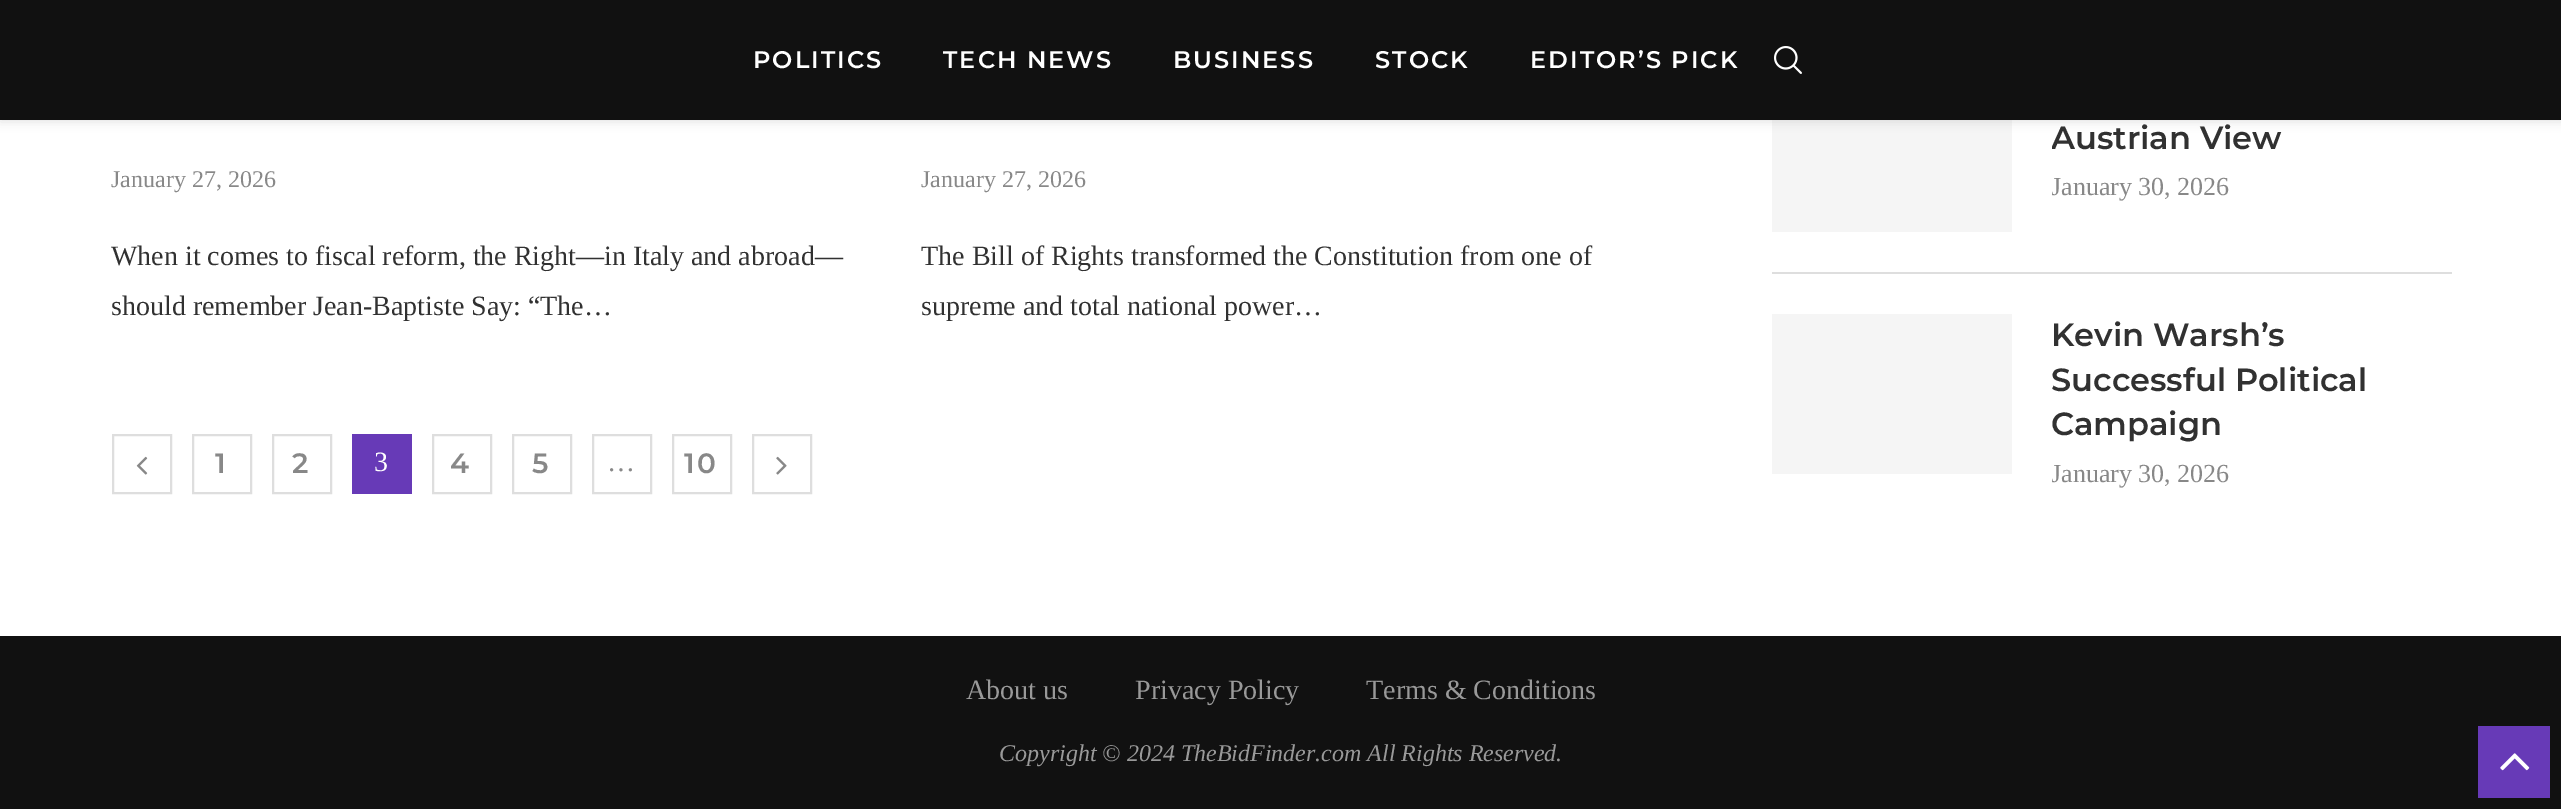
%!PS
<< /PageSize [2561 809] /PageUsesTransparency true >> setpagedevice
/mt/moveto load def
/gs/gsave load def
/gr/grestore load def
/lw/setlinewidth load def
/co { dup -16 bitshift 255 div exch dup -8 bitshift 255 and 255 div exch 255 and 255 div setrgbcolor } def
/fn { [ exch dup neg 0 0 3 -1 roll 0 0 ] selectfont } def
/tx { co fn moveto show } def
/bx { co rectfill } def
/al { dup .setfillconstantalpha .setstrokeconstantalpha } def
/rr { 5 dict begin { /r /h /w /y /x } { exch def } forall
  x r add y moveto x w add y 2 copy h add r arct x w add y h add x 1 index r arct
  x y h add x y r arct x y 2 copy exch w add exch r arct closepath end } def
/sh { 12 dict begin { /a /b /q /h /w /y /x } { exch def } forall gsave /was 0 def
  9 -2 -9 { dup b mul 4 div /e exch def 1 sub .425 mul 2.718 exch exp 1 add a .99 .min exch div /now exch def
    1 1 now sub 1 was sub div sub al /was now def
    w h .min e 2 mul add 0 gt { x e sub y e sub w e 2 mul add h e 2 mul add
      q e add b .6 mul add w h .min 2 div e add .min 0 .max rr fill } if } for grestore end } def
/im { 5 dict begin { /h /w /y /x /name } { exch def } forall
  gsave x y translate w h scale
  w h 8 [w 0 0 h 0 0] name (r) file false 3 colorimage grestore end } def
0 .pushpdf14devicefilter
0 809 translate 1 -1 scale
4 setmiterlimit
0 0 2561 809 16#FFFFFF bx
1772 120 240 112 16#F5F5F5 bx
16#BEBEBE co
0 2 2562 120 0 5 .46 sh
0 0 2561 120 16#111111 bx
(media/1.raw) 1774 46 28 28 im
16#DEDEDE co
2 lw
113 435 58 58 rectstroke
(media/2.raw) 136 456 12 19 im
193 435 58 58 rectstroke
273 435 58 58 rectstroke
352 434 60 60 16#673AB7 bx
16#DEDEDE co
433 435 58 58 rectstroke
513 435 58 58 rectstroke
593 435 58 58 rectstroke
673 435 58 58 rectstroke
753 435 58 58 rectstroke
(media/3.raw) 776 456 11 19 im
1772 272 680 2 16#DEDEDE bx
1772 314 240 160 16#F5F5F5 bx
0 636 2561 173 16#111111 bx
2478 726 72 72 16#673AB7 bx
(media/4.raw) 2500 753 30 18 im
/Montserrat-SemiBold 24 fn
16#FFFFFF co
753 68 mt 2 0 (POLITICS) ashow
943 68 mt 2 0 (TECH NEWS) ashow
1173 68 mt 2 0 (BUSINESS) ashow
1375 68 mt 2 0 (STOCK) ashow
1530 68 mt 2 0 (EDITOR’S PICK) ashow
(January 27, 2026) 111 187 /LiberationSerif-Regular 24 16#888888 tx
(When it comes to fiscal reform, the Right—in Italy and abroad—) 111 265 /LiberationSerif-Regular 28 16#313131 tx
(should remember Jean-Baptiste Say: “The…) 111 315 /LiberationSerif-Regular 28 16#313131 tx
(January 27, 2026) 921 187 /LiberationSerif-Regular 24 16#888888 tx
(The Bill of Rights transformed the Constitution from one of) 921 265 /LiberationSerif-Regular 28 16#313131 tx
(supreme and total national power…) 921 315 /LiberationSerif-Regular 28 16#313131 tx
/Montserrat-SemiBold 28 fn
16#888888 co
215 473 mt 2 0 (1) ashow
292 473 mt 2 0 (2) ashow
(3) 374 471 /LiberationSerif-Regular 28 16#FFFFFF tx
/Montserrat-SemiBold 28 fn
16#888888 co
450 473 mt 2 0 (4) ashow
532 473 mt 2 0 (5) ashow
(…) 607 471 /LiberationSerif-Regular 28 16#888888 tx
/Montserrat-SemiBold 28 fn
684 473 mt 2 0 (10) ashow
gs
2052 72 400 130 rectclip
(Austrian View) 2051 149 /Montserrat-SemiBold 32 16#313131 tx
(January 30, 2026) 2051 195 /LiberationSerif-Regular 26 16#888888 tx
gr
(Kevin Warsh’s) 2051 346 /Montserrat-SemiBold 32 16#313131 tx
(Successful Political) 2051 391 /Montserrat-SemiBold 32 16#313131 tx
(Campaign) 2051 435 /Montserrat-SemiBold 32 16#313131 tx
gs
2052 314 400 176 rectclip
(January 30, 2026) 2051 482 /LiberationSerif-Regular 26 16#888888 tx
gr
(About us) 966 699 /LiberationSerif-Regular 28 16#999999 tx
(Privacy Policy) 1135 699 /LiberationSerif-Regular 28 16#999999 tx
(Terms & Conditions) 1366 699 /LiberationSerif-Regular 28 16#999999 tx
(Copyright © 2024 TheBidFinder.com All Rights Reserved.) 999 761 /LiberationSerif-Italic 24 16#999999 tx
.poppdf14devicefilter showpage
